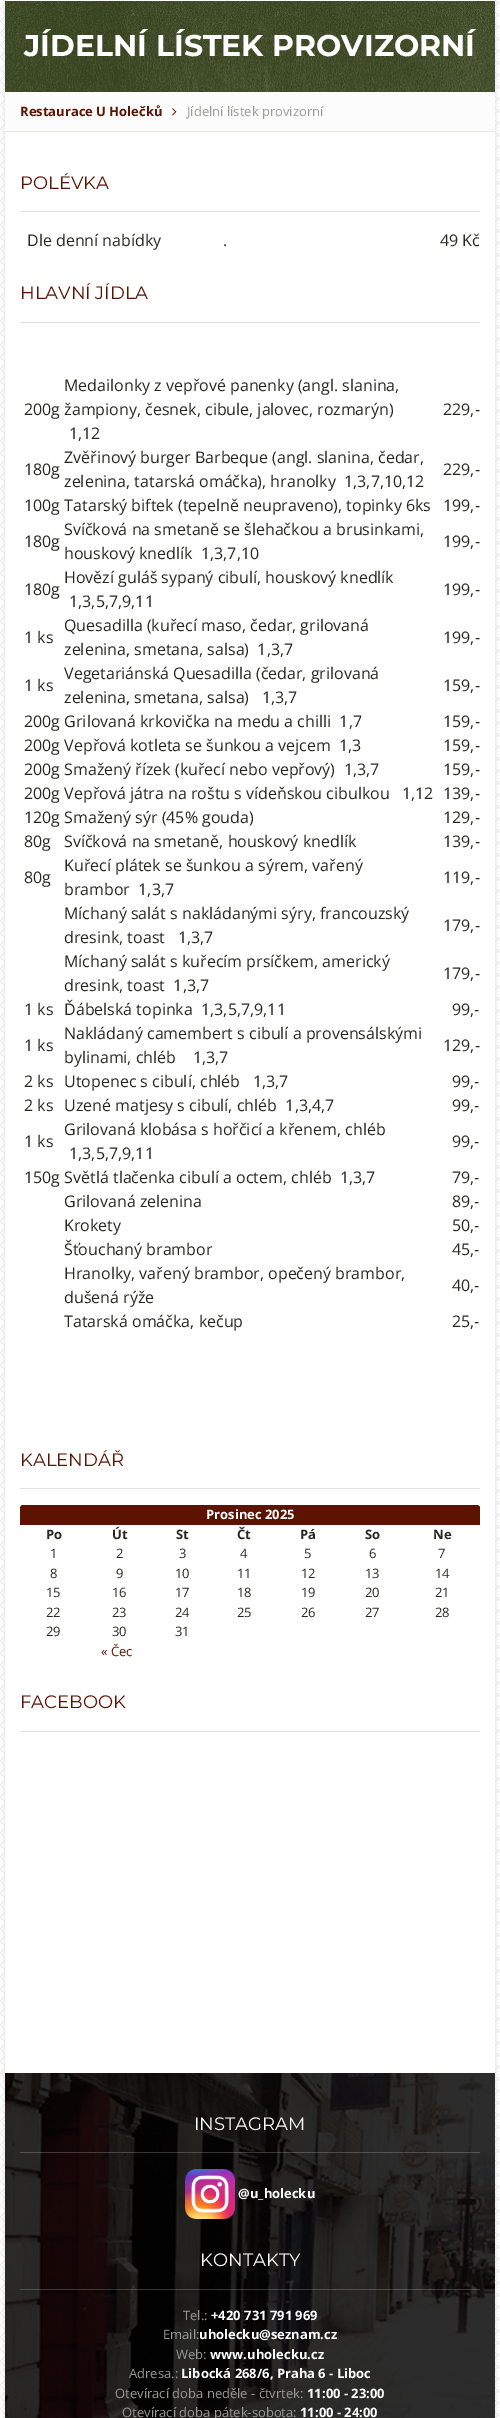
%!PS
<< /PageSize [500 2418] /PageUsesTransparency true >> setpagedevice
/mt/moveto load def
/li/lineto load def
/ct/curveto load def
/cp/closepath load def
/fl/fill load def
/co { dup -16 bitshift 255 div exch dup -8 bitshift 255 and 255 div exch 255 and 255 div setrgbcolor } def
/fn { [ exch dup neg 0 0 3 -1 roll 0 0 ] selectfont } def
/tx { co fn moveto show } def
/bx { co rectfill } def
/al { dup .setfillconstantalpha .setstrokeconstantalpha } def
/rr { 5 dict begin { /r /h /w /y /x } { exch def } forall
  x r add y moveto x w add y 2 copy h add r arct x w add y h add x 1 index r arct
  x y h add x y r arct x y 2 copy exch w add exch r arct closepath end } def
/sh { 12 dict begin { /a /b /q /h /w /y /x } { exch def } forall gsave /was 0 def
  9 -2 -9 { dup b mul 4 div /e exch def 1 sub .425 mul 2.718 exch exp 1 add a .99 .min exch div /now exch def
    1 1 now sub 1 was sub div sub al /was now def
    w h .min e 2 mul add 0 gt { x e sub y e sub w e 2 mul add h e 2 mul add
      q e add b .6 mul add w h .min 2 div e add .min 0 .max rr fill } if } for grestore end } def
/im { 5 dict begin { /h /w /y /x /name } { exch def } forall
  gsave x y translate w h scale
  w h 8 [w 0 0 h 0 0] name (r) file false 3 colorimage grestore end } def
0 .pushpdf14devicefilter
0 2418 translate 1 -1 scale
4 setmiterlimit
0 0 500 2418 16#FFFFFF bx
(media/1.raw) 0 0 500 2418 im
16#000000 co
5 -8 490 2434 0 2.5 .12 sh
5 0 490 2073 16#FFFFFF bx
5 1 490 91 16#49592A bx
(media/2.raw) 5 1 490 91 im
5 92 490 39 16#FCFCFC bx
5 131 490 1 16#E8E8E3 bx
(media/3.raw) 172 108 5 8 im
20 211 460 1 16#E0E0E0 bx
20 322 460 1 16#E0E0E0 bx
20 1488 460 1 16#E0E0E0 bx
16#5C1302 co
23 1505 mt 477 1505 li 478.5 1505 480 1506.5 480 1508 ct 480 1525 li 20 1525 li 20 1508 li 20 1506.5 21.5 1505 23 1505 ct cp fl
20 1731 460 1 16#E0E0E0 bx
5 2073 490 345 16#000000 bx
(media/4.raw) 5 2073 490 345 im
0.2 al
20 2152 460 1 16#FFFFFF bx
1 al
(media/5.raw) 185 2169 50 50 im
0.2 al
20 2289 460 1 16#FFFFFF bx
1 al
(JÍDELNÍ LÍSTEK PROVIZORNÍ) 24 56 /Montserrat-Bold 30 16#FFFFFF tx
(Restaurace U Holečků) 20 116 /OpenSans-Bold 13 16#5C1302 tx
(Jídelní lístek provizorní) 187 116 /OpenSans-Regular 13 16#999996 tx
(POLÉVKA) 20 189 /Montserrat-Regular 18 16#5C1302 tx
(Dle denní nabídky               .) 27 246 /OpenSans-Regular 16 16#282823 tx
(49 Kč) 440 246 /OpenSans-Regular 16 16#282823 tx
(HLAVNÍ JÍDLA) 20 299 /Montserrat-Regular 18 16#5C1302 tx
(Medailonky z vepřové panenky \(angl. slanina,) 64 391 /OpenSans-Regular 16 16#282823 tx
(1,12) 69 439 /OpenSans-Regular 16 16#282823 tx
(200g žampiony, česnek, cibule, jalovec, rozmarýn\)) 24 415 /OpenSans-Regular 16 16#282823 tx
(229,-) 443 415 /OpenSans-Regular 16 16#282823 tx
(180g) 24 475 /OpenSans-Regular 16 16#282823 tx
(Zvěřinový burger Barbeque \(angl. slanina, čedar,) 64 463 /OpenSans-Regular 16 16#282823 tx
(zelenina, tatarská omáčka\), hranolky  1,3,7,10,12) 64 487 /OpenSans-Regular 16 16#282823 tx
(229,-) 443 475 /OpenSans-Regular 16 16#282823 tx
(100g Tatarský biftek \(tepelně neupraveno\), topinky 6ks) 24 511 /OpenSans-Regular 16 16#282823 tx
(199,-) 443 511 /OpenSans-Regular 16 16#282823 tx
(180g) 24 547 /OpenSans-Regular 16 16#282823 tx
(Svíčková na smetaně se šlehačkou a brusinkami,) 64 535 /OpenSans-Regular 16 16#282823 tx
(houskový knedlík  1,3,7,10) 64 559 /OpenSans-Regular 16 16#282823 tx
(199,-) 443 547 /OpenSans-Regular 16 16#282823 tx
(180g) 24 595 /OpenSans-Regular 16 16#282823 tx
(Hovězí guláš sypaný cibulí, houskový knedlík) 64 583 /OpenSans-Regular 16 16#282823 tx
(1,3,5,7,9,11) 69 607 /OpenSans-Regular 16 16#282823 tx
(199,-) 443 595 /OpenSans-Regular 16 16#282823 tx
(1 ks) 24 643 /OpenSans-Regular 16 16#282823 tx
(Quesadilla \(kuřecí maso, čedar, grilovaná) 64 631 /OpenSans-Regular 16 16#282823 tx
(zelenina, smetana, salsa\)  1,3,7) 64 655 /OpenSans-Regular 16 16#282823 tx
(199,-) 443 643 /OpenSans-Regular 16 16#282823 tx
(1 ks) 24 691 /OpenSans-Regular 16 16#282823 tx
(Vegetariánská Quesadilla \(čedar, grilovaná) 64 679 /OpenSans-Regular 16 16#282823 tx
(zelenina, smetana, salsa\)   1,3,7) 64 703 /OpenSans-Regular 16 16#282823 tx
(159,-) 443 691 /OpenSans-Regular 16 16#282823 tx
(200g Grilovaná krkovička na medu a chilli  1,7) 24 727 /OpenSans-Regular 16 16#282823 tx
(159,-) 443 727 /OpenSans-Regular 16 16#282823 tx
(200g Vepřová kotleta se šunkou a vejcem  1,3) 24 751 /OpenSans-Regular 16 16#282823 tx
(159,-) 443 751 /OpenSans-Regular 16 16#282823 tx
(200g Smažený řízek \(kuřecí nebo vepřový\)  1,3,7) 24 775 /OpenSans-Regular 16 16#282823 tx
(159,-) 443 775 /OpenSans-Regular 16 16#282823 tx
(200g Vepřová játra na roštu s vídeňskou cibulkou   1,12) 24 799 /OpenSans-Regular 16 16#282823 tx
(139,-) 443 799 /OpenSans-Regular 16 16#282823 tx
(120g Smažený sýr \(45% gouda\)) 24 823 /OpenSans-Regular 16 16#282823 tx
(129,-) 443 823 /OpenSans-Regular 16 16#282823 tx
(80g) 24 847 /OpenSans-Regular 16 16#282823 tx
(Svíčková na smetaně, houskový knedlík) 64 847 /OpenSans-Regular 16 16#282823 tx
(139,-) 443 847 /OpenSans-Regular 16 16#282823 tx
(80g) 24 883 /OpenSans-Regular 16 16#282823 tx
(Kuřecí plátek se šunkou a sýrem, vařený) 64 871 /OpenSans-Regular 16 16#282823 tx
(brambor  1,3,7) 64 895 /OpenSans-Regular 16 16#282823 tx
(119,-) 443 883 /OpenSans-Regular 16 16#282823 tx
(Míchaný salát s nakládanými sýry, francouzský) 64 919 /OpenSans-Regular 16 16#282823 tx
(dresink, toast   1,3,7) 64 943 /OpenSans-Regular 16 16#282823 tx
(179,-) 443 931 /OpenSans-Regular 16 16#282823 tx
(Míchaný salát s kuřecím prsíčkem, americký) 64 967 /OpenSans-Regular 16 16#282823 tx
(dresink, toast  1,3,7) 64 991 /OpenSans-Regular 16 16#282823 tx
(179,-) 443 979 /OpenSans-Regular 16 16#282823 tx
(1 ks) 24 1015 /OpenSans-Regular 16 16#282823 tx
(Ďábelská topinka  1,3,5,7,9,11) 64 1015 /OpenSans-Regular 16 16#282823 tx
(99,-) 452 1015 /OpenSans-Regular 16 16#282823 tx
(1 ks) 24 1051 /OpenSans-Regular 16 16#282823 tx
(Nakládaný camembert s cibulí a provensálskými) 64 1039 /OpenSans-Regular 16 16#282823 tx
(bylinami, chléb    1,3,7) 64 1063 /OpenSans-Regular 16 16#282823 tx
(129,-) 443 1051 /OpenSans-Regular 16 16#282823 tx
(2 ks) 24 1087 /OpenSans-Regular 16 16#282823 tx
(Utopenec s cibulí, chléb   1,3,7) 64 1087 /OpenSans-Regular 16 16#282823 tx
(99,-) 452 1087 /OpenSans-Regular 16 16#282823 tx
(2 ks) 24 1111 /OpenSans-Regular 16 16#282823 tx
(Uzené matjesy s cibulí, chléb  1,3,4,7) 64 1111 /OpenSans-Regular 16 16#282823 tx
(99,-) 452 1111 /OpenSans-Regular 16 16#282823 tx
(1 ks) 24 1147 /OpenSans-Regular 16 16#282823 tx
(Grilovaná klobása s hořčicí a křenem, chléb) 64 1135 /OpenSans-Regular 16 16#282823 tx
(1,3,5,7,9,11) 69 1159 /OpenSans-Regular 16 16#282823 tx
(99,-) 452 1147 /OpenSans-Regular 16 16#282823 tx
(150g Světlá tlačenka cibulí a octem, chléb  1,3,7) 24 1183 /OpenSans-Regular 16 16#282823 tx
(79,-) 452 1183 /OpenSans-Regular 16 16#282823 tx
(Grilovaná zelenina) 64 1207 /OpenSans-Regular 16 16#282823 tx
(89,-) 452 1207 /OpenSans-Regular 16 16#282823 tx
(Krokety) 64 1231 /OpenSans-Regular 16 16#282823 tx
(50,-) 452 1231 /OpenSans-Regular 16 16#282823 tx
(Šťouchaný brambor) 64 1255 /OpenSans-Regular 16 16#282823 tx
(45,-) 452 1255 /OpenSans-Regular 16 16#282823 tx
(Hranolky, vařený brambor, opečený brambor,) 64 1279 /OpenSans-Regular 16 16#282823 tx
(dušená rýže) 64 1303 /OpenSans-Regular 16 16#282823 tx
(40,-) 452 1291 /OpenSans-Regular 16 16#282823 tx
(Tatarská omáčka, kečup) 64 1327 /OpenSans-Regular 16 16#282823 tx
(25,-) 452 1327 /OpenSans-Regular 16 16#282823 tx
(KALENDÁŘ) 20 1466 /Montserrat-Regular 18 16#5C1302 tx
(Prosinec 2025) 206 1519 /OpenSans-Bold 13 16#FFFFFF tx
(Po) 46 1539 /OpenSans-Bold 13 16#282823 tx
(Út) 112 1539 /OpenSans-Bold 13 16#282823 tx
(St) 176 1539 /OpenSans-Bold 13 16#282823 tx
(Čt) 237 1539 /OpenSans-Bold 13 16#282823 tx
(Pá) 300 1539 /OpenSans-Bold 13 16#282823 tx
(So) 365 1539 /OpenSans-Bold 13 16#282823 tx
(Ne) 433 1539 /OpenSans-Bold 13 16#282823 tx
(1) 50 1558 /OpenSans-Regular 13 16#282823 tx
(2) 116 1558 /OpenSans-Regular 13 16#282823 tx
(3) 179 1558 /OpenSans-Regular 13 16#282823 tx
(4) 240 1558 /OpenSans-Regular 13 16#282823 tx
(5) 304 1558 /OpenSans-Regular 13 16#282823 tx
(6) 369 1558 /OpenSans-Regular 13 16#282823 tx
(7) 438 1558 /OpenSans-Regular 13 16#282823 tx
(8) 50 1578 /OpenSans-Regular 13 16#282823 tx
(9) 116 1578 /OpenSans-Regular 13 16#282823 tx
(10) 175 1578 /OpenSans-Regular 13 16#282823 tx
(11) 237 1578 /OpenSans-Regular 13 16#282823 tx
(12) 301 1578 /OpenSans-Regular 13 16#282823 tx
(13) 365 1578 /OpenSans-Regular 13 16#282823 tx
(14) 435 1578 /OpenSans-Regular 13 16#282823 tx
(15) 46 1597 /OpenSans-Regular 13 16#282823 tx
(16) 112 1597 /OpenSans-Regular 13 16#282823 tx
(17) 175 1597 /OpenSans-Regular 13 16#282823 tx
(18) 237 1597 /OpenSans-Regular 13 16#282823 tx
(19) 301 1597 /OpenSans-Regular 13 16#282823 tx
(20) 365 1597 /OpenSans-Regular 13 16#282823 tx
(21) 435 1597 /OpenSans-Regular 13 16#282823 tx
(22) 46 1617 /OpenSans-Regular 13 16#282823 tx
(23) 112 1617 /OpenSans-Regular 13 16#282823 tx
(24) 175 1617 /OpenSans-Regular 13 16#282823 tx
(25) 237 1617 /OpenSans-Regular 13 16#282823 tx
(26) 301 1617 /OpenSans-Regular 13 16#282823 tx
(27) 365 1617 /OpenSans-Regular 13 16#282823 tx
(28) 435 1617 /OpenSans-Regular 13 16#282823 tx
(29) 46 1636 /OpenSans-Regular 13 16#282823 tx
(30) 112 1636 /OpenSans-Regular 13 16#282823 tx
(31) 175 1636 /OpenSans-Regular 13 16#282823 tx
(« Čec) 101 1656 /OpenSans-Regular 13 16#5C1302 tx
(FACEBOOK) 20 1708 /Montserrat-Regular 18 16#5C1302 tx
(INSTAGRAM) 194 2130 /Montserrat-Regular 18 16#FFFFFF tx
(@u_holecku) 238 2198 /OpenSans-Bold 13 16#FFFFFF tx
(KONTAKTY) 200 2266 /Montserrat-Regular 18 16#FFFFFF tx
(Tel.:) 183 2320 /OpenSans-Regular 13 16#999996 tx
(+420 731 791 969) 211 2320 /OpenSans-Bold 13 16#FFFFFF tx
(Email:) 163 2339 /OpenSans-Regular 13 16#999996 tx
(uholecku@seznam.cz) 199 2339 /OpenSans-Bold 13 16#FFFFFF tx
(Web:) 176 2359 /OpenSans-Regular 13 16#999996 tx
(www.uholecku.cz) 210 2359 /OpenSans-Bold 13 16#FFFFFF tx
(Adresa.:) 129 2378 /OpenSans-Regular 13 16#999996 tx
(Libocká 268/6, Praha 6 - Liboc) 181 2378 /OpenSans-Bold 13 16#FFFFFF tx
(Otevírací doba neděle - čtvrtek:) 115 2398 /OpenSans-Regular 13 16#999996 tx
(11:00 - 23:00) 307 2398 /OpenSans-Bold 13 16#FFFFFF tx
(Otevírací doba pátek-sobota:) 122 2417 /OpenSans-Regular 13 16#999996 tx
(11:00 - 24:00) 300 2417 /OpenSans-Bold 13 16#FFFFFF tx
.poppdf14devicefilter showpage
